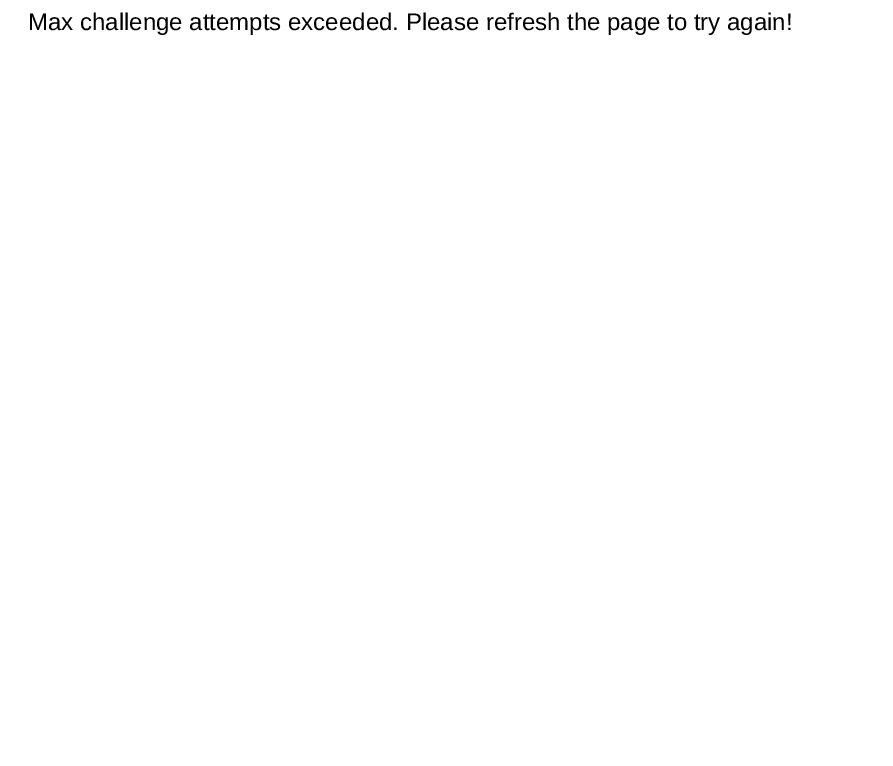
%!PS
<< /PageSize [893 766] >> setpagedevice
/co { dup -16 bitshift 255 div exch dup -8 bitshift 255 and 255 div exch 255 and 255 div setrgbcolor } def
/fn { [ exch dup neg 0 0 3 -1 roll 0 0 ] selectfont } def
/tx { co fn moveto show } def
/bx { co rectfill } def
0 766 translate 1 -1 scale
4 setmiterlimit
0 0 893 766 16#FFFFFF bx
(Max challenge attempts exceeded. Please refresh the page to try again!) 28 30 /LiberationSans-Regular 24 16#000000 tx
showpage
